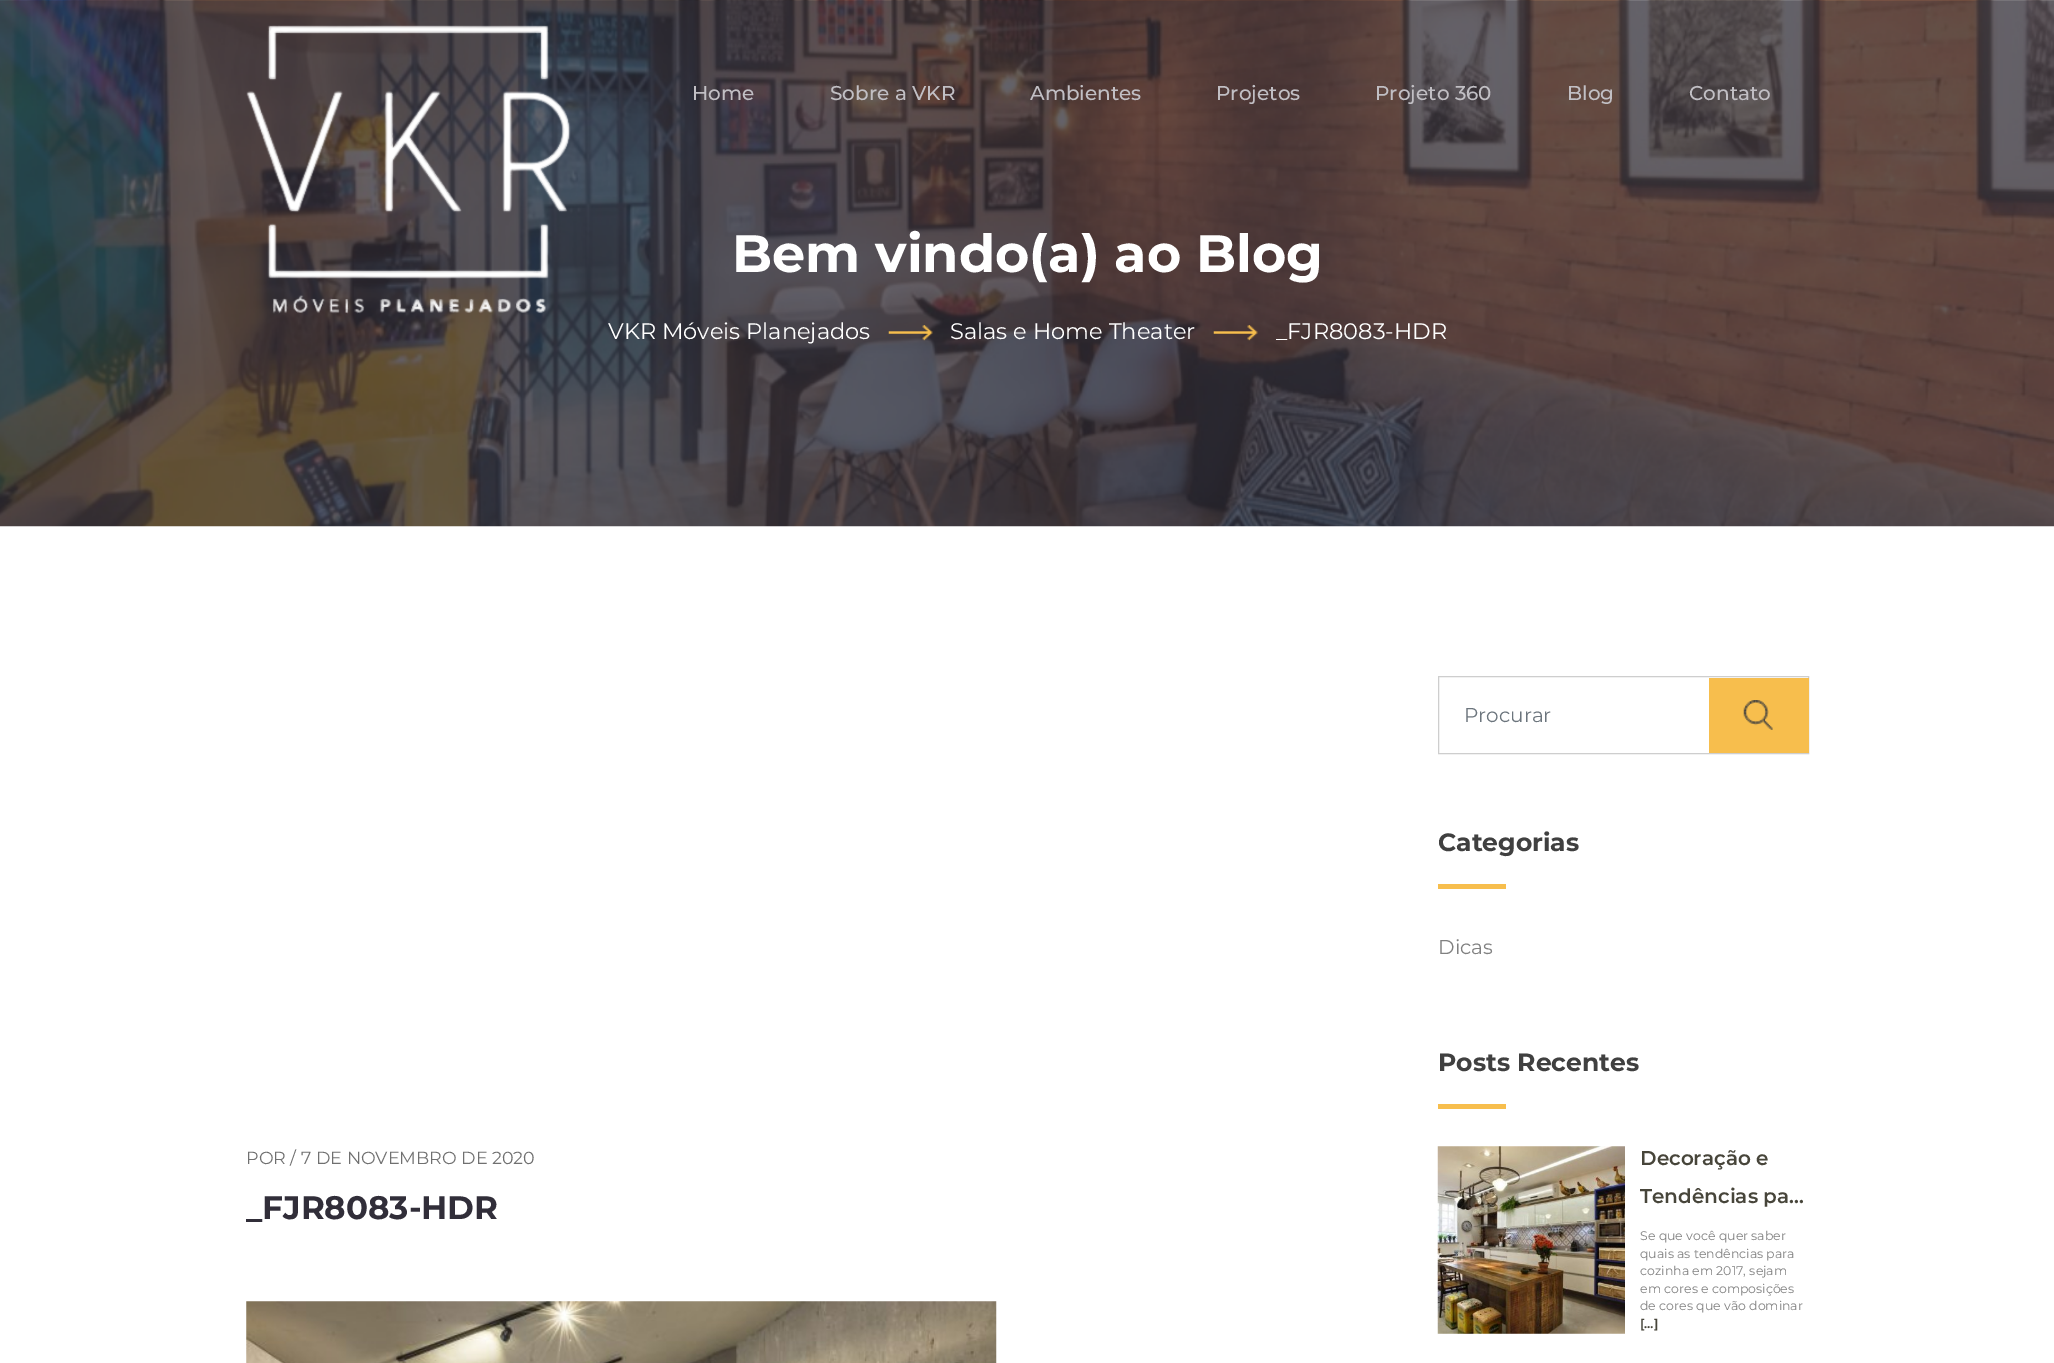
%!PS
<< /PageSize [2054 1363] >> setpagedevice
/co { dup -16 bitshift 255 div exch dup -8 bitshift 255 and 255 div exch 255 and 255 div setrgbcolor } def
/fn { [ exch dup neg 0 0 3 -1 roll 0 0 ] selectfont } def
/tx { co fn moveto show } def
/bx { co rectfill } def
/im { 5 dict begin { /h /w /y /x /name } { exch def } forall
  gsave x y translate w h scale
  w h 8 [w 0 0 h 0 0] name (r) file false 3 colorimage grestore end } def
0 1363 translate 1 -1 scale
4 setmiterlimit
0 0 2054 1363 16#FFFFFF bx
(media/2.raw) 0 0 2054 527 im
(media/1.raw) 246 25 325 289 im
(media/3.raw) 888 325 45 16 im
(media/4.raw) 1213 325 45 16 im
(media/5.raw) 246 1301 751 62 im
16#CECECE co
1438.5 676.5 370 77 rectstroke
1709 678 100 75 16#F7BE4D bx
(media/6.raw) 1743 700 30 30 im
1438 884 68 5 16#F7BE4D bx
1438 1104 68 5 16#F7BE4D bx
(media/7.raw) 1437 1146 188 188 im
(Home) 692 100 /Montserrat-Medium 20 16#C1BFC4 tx
(Sobre a VKR) 830 100 /Montserrat-Medium 20 16#C1BFC4 tx
(Ambientes) 1030 100 /Montserrat-Medium 20 16#C1BFC4 tx
(Projetos) 1216 100 /Montserrat-Medium 20 16#C1BFC4 tx
(Projeto 360) 1375 100 /Montserrat-Medium 20 16#C1BFC4 tx
(Blog) 1567 100 /Montserrat-Medium 20 16#C1BFC4 tx
(Contato) 1689 100 /Montserrat-Medium 20 16#C1BFC4 tx
(Bem vindo\(a\) ao Blog) 732 272 /Montserrat-Bold 52.5 16#FFFFFF tx
(VKR Móveis Planejados) 608 339 /Montserrat-Regular 22.5 16#FFFFFF tx
(Salas e Home Theater) 950 339 /Montserrat-Regular 22.5 16#FFFFFF tx
(_FJR8083-HDR) 1276 339 /Montserrat-Regular 22.5 16#FFFFFF tx
(POR / 7 DE NOVEMBRO DE 2020) 246 1164 /Montserrat-Regular 17.5 16#707070 tx
(_FJR8083-HDR) 246 1219 /Montserrat-Bold 32.5 16#312E39 tx
(Procurar) 1464 722 /Montserrat-Regular 20 16#6C757D tx
(Categorias) 1438 851 /Montserrat-Bold 25 16#404040 tx
(Dicas) 1438 954 /Montserrat-Regular 20 16#818181 tx
(Posts Recentes) 1438 1071 /Montserrat-Bold 25 16#404040 tx
(Decoração e) 1640 1165 /Montserrat-SemiBold 20 16#47453A tx
(Tendências pa…) 1640 1203 /Montserrat-SemiBold 20 16#47453A tx
(Se que você quer saber) 1640 1240 /Montserrat-Regular 12.5 16#818181 tx
(quais as tendências para) 1640 1258 /Montserrat-Regular 12.5 16#818181 tx
(cozinha em 2017, sejam) 1640 1275 /Montserrat-Regular 12.5 16#818181 tx
(em cores e composições) 1640 1293 /Montserrat-Regular 12.5 16#818181 tx
(de cores que vão dominar) 1640 1310 /Montserrat-Regular 12.5 16#818181 tx
([…]) 1640 1328 /Montserrat-SemiBold 12.5 16#47453A tx
showpage
